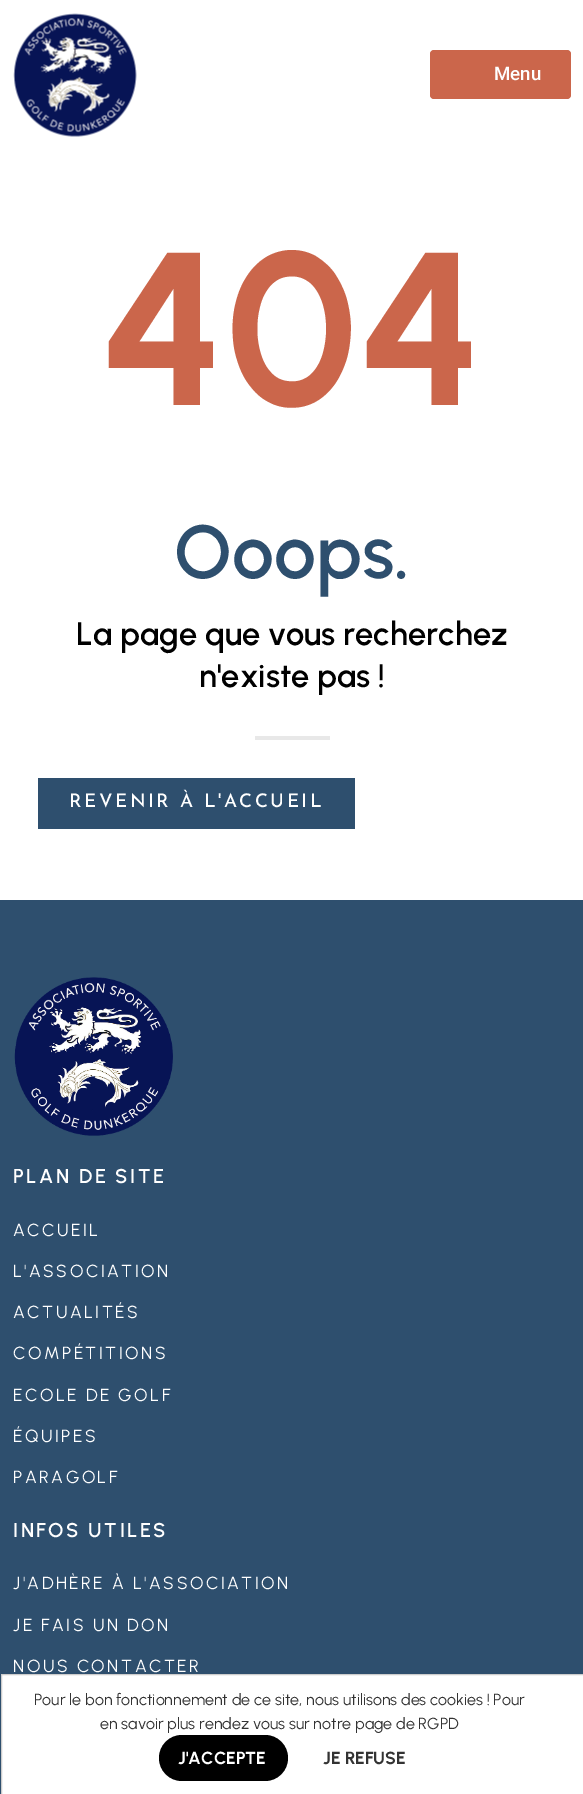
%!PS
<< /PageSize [583 1794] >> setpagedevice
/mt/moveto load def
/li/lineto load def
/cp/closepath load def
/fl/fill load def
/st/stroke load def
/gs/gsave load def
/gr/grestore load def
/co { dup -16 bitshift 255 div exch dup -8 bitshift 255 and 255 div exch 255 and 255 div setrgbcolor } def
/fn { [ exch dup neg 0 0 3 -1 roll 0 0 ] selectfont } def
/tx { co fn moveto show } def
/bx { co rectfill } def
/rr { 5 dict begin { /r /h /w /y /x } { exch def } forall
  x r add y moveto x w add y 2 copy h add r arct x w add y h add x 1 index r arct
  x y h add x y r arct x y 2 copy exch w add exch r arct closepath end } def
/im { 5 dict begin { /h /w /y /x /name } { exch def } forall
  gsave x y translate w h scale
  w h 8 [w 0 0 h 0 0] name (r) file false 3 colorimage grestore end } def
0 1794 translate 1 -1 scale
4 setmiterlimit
0 0 583 1794 16#FFFFFF bx
(media/1.raw) 13 13 124 124 im
16#CB664B co
430 50 141 49 4 rr fl
255 736 75 4 16#E8E8E8 bx
38 778 317 51 16#2E4F6E bx
0 900 583 894 16#2E4F6E bx
(media/2.raw) 14 977 159 159 im
16#FFFFFF co
1.5 1674.5 mt 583.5 1674.5 li 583.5 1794.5 li 1.5 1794.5 li cp gs fl gr
16#CCCCCC co
st
16#000000 co
159 1735 129 46 23 rr fl
(Menu) 494 80 /Roboto-Medium 18.75 16#FFFFFF tx
(404) 100 405 /Urbanist-Bold 218 16#CB664B tx
(Ooops.) 174 578 /Urbanist-SemiBold 75 16#2E4F6E tx
(La page que vous recherchez) 76 645 /Urbanist-SemiBold 32.5 16#000000 tx
(n'existe pas !) 199 687 /Urbanist-SemiBold 32.5 16#000000 tx
/JosefinSans-Medium 18.75 fn
16#FFFFFF co
69 807 mt 2.5 0 (REVENIR À L'ACCUEIL) ashow
/Urbanist-SemiBold 20 fn
13 1183 mt 2.5 0 (PLAN DE SITE) ashow
/Urbanist-Regular 17.5 fn
13 1236 mt 2.5 0 (ACCUEIL) ashow
13 1277 mt 2.5 0 (L'ASSOCIATION) ashow
13 1318 mt 2.5 0 (ACTUALITÉS) ashow
13 1359 mt 2.5 0 (COMPÉTITIONS) ashow
13 1401 mt 2.5 0 (ECOLE DE GOLF) ashow
13 1442 mt 2.5 0 (ÉQUIPES) ashow
13 1483 mt 2.5 0 (PARAGOLF) ashow
/Urbanist-SemiBold 20 fn
13 1537 mt 2.5 0 (INFOS UTILES) ashow
/Urbanist-Regular 17.5 fn
13 1589 mt 2.5 0 (J'ADHÈRE À L'ASSOCIATION) ashow
13 1631 mt 2.5 0 (JE FAIS UN DON) ashow
13 1672 mt 2.5 0 (NOUS CONTACTER) ashow
(Pour le bon fonctionnement de ce site, nous utilisons des cookies ! Pour) 34 1705 /Urbanist-Regular 16 16#333333 tx
(en savoir plus rendez vous sur notre page de RGPD) 100 1729 /Urbanist-Regular 16 16#333333 tx
(J'ACCEPTE) 178 1764 /Urbanist-Bold 17.5 16#FFFFFF tx
(JE REFUSE) 323 1764 /Urbanist-Bold 17.5 16#333333 tx
showpage
